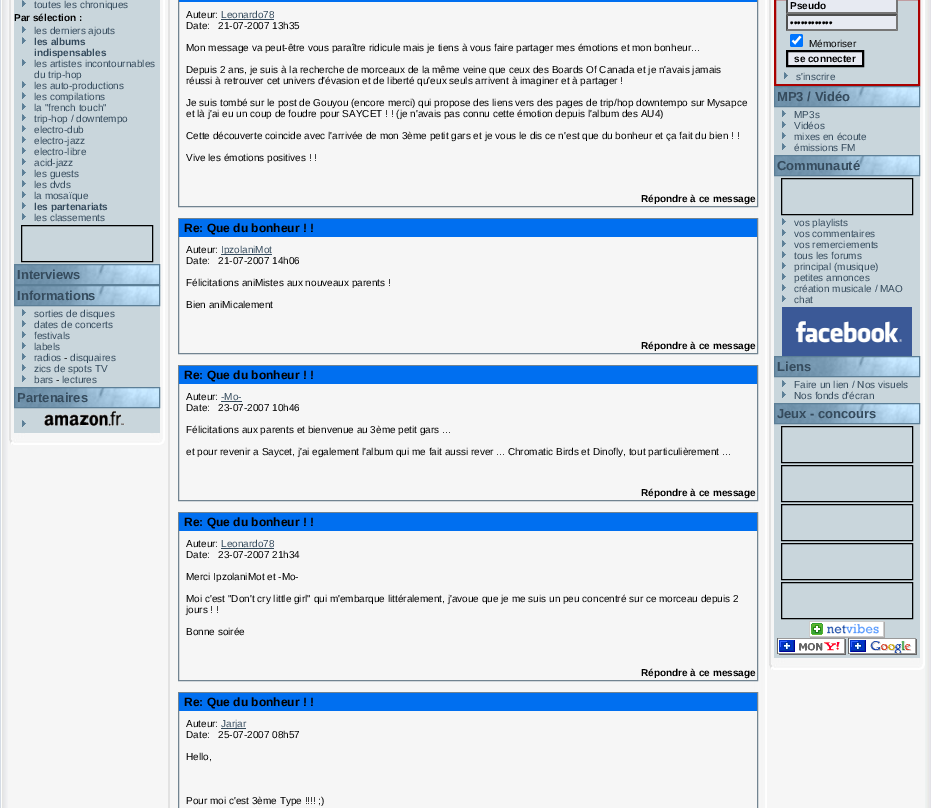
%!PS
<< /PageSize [931 808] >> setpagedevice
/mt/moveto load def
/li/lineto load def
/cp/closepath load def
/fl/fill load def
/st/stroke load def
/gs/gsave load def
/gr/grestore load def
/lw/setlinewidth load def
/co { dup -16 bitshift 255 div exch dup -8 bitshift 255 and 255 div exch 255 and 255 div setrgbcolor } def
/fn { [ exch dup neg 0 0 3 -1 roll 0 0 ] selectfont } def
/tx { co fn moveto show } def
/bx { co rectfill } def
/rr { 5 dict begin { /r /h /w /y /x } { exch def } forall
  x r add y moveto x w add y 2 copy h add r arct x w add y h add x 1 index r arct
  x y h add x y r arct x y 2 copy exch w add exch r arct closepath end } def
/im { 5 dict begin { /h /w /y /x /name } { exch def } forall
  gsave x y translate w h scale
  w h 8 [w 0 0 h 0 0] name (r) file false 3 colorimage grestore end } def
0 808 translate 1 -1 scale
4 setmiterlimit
0 0 931 808 16#D4DBE5 bx
(media/1.raw) 1 0 930 808 im
(media/2.raw) 9 0 156 433 im
(media/3.raw) 22 0 4 7 im
(media/3.raw) 22 26 4 7 im
(media/3.raw) 22 37 4 7 im
(media/3.raw) 22 59 4 7 im
(media/3.raw) 22 81 4 7 im
(media/3.raw) 22 92 4 7 im
(media/3.raw) 22 103 4 7 im
(media/3.raw) 22 114 4 7 im
(media/3.raw) 22 125 4 7 im
(media/3.raw) 22 136 4 7 im
(media/3.raw) 22 147 4 7 im
(media/3.raw) 22 158 4 7 im
(media/3.raw) 22 169 4 7 im
(media/3.raw) 22 180 4 7 im
(media/3.raw) 22 191 4 7 im
(media/3.raw) 22 202 4 7 im
(media/3.raw) 22 213 4 7 im
16#000000 co
21.5 225.5 131 36 rectstroke
(media/4.raw) 15 265 144 19 im
16#5C7F97 co
14.5 264.5 145 20 rectstroke
(media/4.raw) 15 286 144 19 im
14.5 285.5 145 20 rectstroke
(media/3.raw) 22 309 4 7 im
(media/3.raw) 22 320 4 7 im
(media/3.raw) 22 331 4 7 im
(media/3.raw) 22 342 4 7 im
(media/3.raw) 22 353 4 7 im
(media/3.raw) 22 364 4 7 im
(media/3.raw) 22 375 4 7 im
(media/4.raw) 15 388 144 19 im
14.5 387.5 145 20 rectstroke
(media/3.raw) 22 420 4 7 im
(media/5.raw) 44 411 81 15 im
(media/6.raw) 9 433 156 12 im
(media/7.raw) 168 0 599 808 im
16#728491 co
178.5 -.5 579 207 rectstroke
179 0 578 2 16#006FF0 bx
221 19 53 1 16#354B5D bx
16#728491 co
178.5 218.5 579 135 rectstroke
179 219 578 18 16#006FF0 bx
221 254 51 1 16#354B5D bx
16#728491 co
178.5 365.5 579 135 rectstroke
179 366 578 18 16#006FF0 bx
221 401 21 1 16#354B5D bx
16#728491 co
178.5 512.5 579 168 rectstroke
179 513 578 18 16#006FF0 bx
221 548 53 1 16#354B5D bx
16#728491 co
178.5 692.5 579 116 rectstroke
179 693 578 18 16#006FF0 bx
221 728 25 1 16#354B5D bx
(media/8.raw) 769 0 156 658 im
16#AA0000 co
2 lw
775 -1 144 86 rectstroke
786 0 112 31 16#E7EAF2 bx
16#767676 co
898 -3 mt 898 14 li 896 12 li 896 -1 li cp fl
898 14 mt 786 14 li 788 12 li 896 12 li cp fl
16#4F4F4F co
786 14 mt 786 -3 li 788 -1 li 788 12 li cp fl
786 14 mt 898 14 li 896 16 li 788 16 li cp fl
16#767676 co
898 14 mt 898 31 li 896 29 li 896 16 li cp fl
898 31 mt 786 31 li 788 29 li 896 29 li cp fl
16#4F4F4F co
786 31 mt 786 14 li 788 16 li 788 29 li cp fl
16#0075FF co
790 34 13 13 2 rr fl
16#FFFFFF co
2.1 lw
792.5 40.5 mt 795 43 li 800.5 36.5 li st
16#E7EAF2 co
787 51 mt 863 51 li 863 66 li 787 66 li cp gs fl gr
16#000000 co
2 lw
st
(media/3.raw) 784 72 4 7 im
(media/4.raw) 775 87 144 19 im
16#5C7F97 co
1 lw
774.5 86.5 145 20 rectstroke
(media/3.raw) 782 110 4 7 im
(media/3.raw) 782 121 4 7 im
(media/3.raw) 782 132 4 7 im
(media/3.raw) 782 143 4 7 im
(media/4.raw) 775 156 144 19 im
774.5 155.5 145 20 rectstroke
16#000000 co
781.5 178.5 131 36 rectstroke
(media/3.raw) 782 218 4 7 im
(media/3.raw) 782 229 4 7 im
(media/3.raw) 782 240 4 7 im
(media/3.raw) 782 251 4 7 im
(media/3.raw) 782 262 4 7 im
(media/3.raw) 782 273 4 7 im
(media/3.raw) 782 284 4 7 im
(media/3.raw) 782 295 4 7 im
(media/9.raw) 782 307 130 49 im
(media/4.raw) 775 357 144 19 im
16#5C7F97 co
774.5 356.5 145 20 rectstroke
(media/3.raw) 782 380 4 7 im
(media/3.raw) 782 391 4 7 im
(media/4.raw) 775 404 144 19 im
774.5 403.5 145 20 rectstroke
16#000000 co
781.5 426.5 131 36 rectstroke
781.5 465.5 131 36 rectstroke
781.5 504.5 131 36 rectstroke
781.5 543.5 131 36 rectstroke
781.5 582.5 131 36 rectstroke
(media/10.raw) 809 621 76 17 im
(media/11.raw) 777 638 69 17 im
(media/12.raw) 848 638 69 17 im
(media/6.raw) 769 658 156 12 im
(toutes les chroniques) 34 8 /LiberationSans-Regular 10 16#354B5D tx
(Par sélection :) 14 21 /LiberationSans-Bold 10 16#000000 tx
(les derniers ajouts) 34 34 /LiberationSans-Regular 10 16#354B5D tx
(les albums) 34 45 /LiberationSans-Bold 10 16#354B5D tx
(indispensables) 34 56 /LiberationSans-Bold 10 16#354B5D tx
(les artistes incontournables) 34 67 /LiberationSans-Regular 10 16#354B5D tx
(du trip-hop) 34 78 /LiberationSans-Regular 10 16#354B5D tx
(les auto-productions) 34 89 /LiberationSans-Regular 10 16#354B5D tx
(les compilations) 34 100 /LiberationSans-Regular 10 16#354B5D tx
(la "french touch") 34 111 /LiberationSans-Regular 10 16#354B5D tx
(trip-hop / downtempo) 34 122 /LiberationSans-Regular 10 16#354B5D tx
(electro-dub) 34 133 /LiberationSans-Regular 10 16#354B5D tx
(electro-jazz) 34 144 /LiberationSans-Regular 10 16#354B5D tx
(electro-libre) 34 155 /LiberationSans-Regular 10 16#354B5D tx
(acid-jazz) 34 166 /LiberationSans-Regular 10 16#354B5D tx
(les guests) 34 177 /LiberationSans-Regular 10 16#354B5D tx
(les dvds) 34 188 /LiberationSans-Regular 10 16#354B5D tx
(la mosaïque) 34 199 /LiberationSans-Regular 10 16#354B5D tx
(les partenariats) 34 210 /LiberationSans-Bold 10 16#354B5D tx
(les classements) 34 221 /LiberationSans-Regular 10 16#354B5D tx
(Interviews) 17 279 /LiberationSans-Bold 13 16#354B5D tx
(Informations) 17 300 /LiberationSans-Bold 13 16#354B5D tx
(sorties de disques) 34 317 /LiberationSans-Regular 10 16#354B5D tx
(dates de concerts) 34 328 /LiberationSans-Regular 10 16#354B5D tx
(festivals) 34 339 /LiberationSans-Regular 10 16#354B5D tx
(labels) 34 350 /LiberationSans-Regular 10 16#354B5D tx
(radios) 34 361 /LiberationSans-Regular 10 16#354B5D tx
(-) 64 361 /LiberationSans-Regular 10 16#000000 tx
(disquaires) 70 361 /LiberationSans-Regular 10 16#354B5D tx
(zics de spots TV) 34 372 /LiberationSans-Regular 10 16#354B5D tx
(bars) 34 383 /LiberationSans-Regular 10 16#354B5D tx
(-) 56 383 /LiberationSans-Regular 10 16#000000 tx
(lectures) 62 383 /LiberationSans-Regular 10 16#354B5D tx
(Partenaires) 17 402 /LiberationSans-Bold 13 16#354B5D tx
(Auteur:) 186 18 /LiberationSans-Regular 10 16#000000 tx
(Leonardo78) 221 18 /LiberationSans-Regular 10 16#354B5D tx
(Date:   21-07-2007 13h35) 186 29 /LiberationSans-Regular 10 16#000000 tx
(Mon message va peut-être vous paraître ridicule mais je tiens à vous faire partager mes émotions et mon bonheur...) 186 51 /LiberationSans-Regular 10 16#000000 tx
(Depuis 2 ans, je suis à la recherche de morceaux de la même veine que ceux des Boards Of Canada et je n'avais jamais) 186 73 /LiberationSans-Regular 10 16#000000 tx
(réussi à retrouver cet univers d'évasion et de liberté qu'eux seuls arrivent à imaginer et à partager !) 186 84 /LiberationSans-Regular 10 16#000000 tx
(Je suis tombé sur le post de Gouyou \(encore merci\) qui propose des liens vers des pages de trip/hop downtempo sur Mysapce) 186 106 /LiberationSans-Regular 10 16#000000 tx
(et là j'ai eu un coup de foudre pour SAYCET ! ! \(je n'avais pas connu cette émotion depuis l'album des AU4\)) 186 117 /LiberationSans-Regular 10 16#000000 tx
(Cette découverte coincide avec l'arrivée de mon 3ème petit gars et je vous le dis ce n'est que du bonheur et ça fait du bien ! !) 186 139 /LiberationSans-Regular 10 16#000000 tx
(Vive les émotions positives ! !) 186 161 /LiberationSans-Regular 10 16#000000 tx
(Répondre à ce message) 641 202 /LiberationSans-Bold 10 16#000000 tx
(Re: Que du bonheur ! !) 184 232 /LiberationSans-Bold 12 16#000000 tx
(Auteur:) 186 253 /LiberationSans-Regular 10 16#000000 tx
(IpzolaniMot) 221 253 /LiberationSans-Regular 10 16#354B5D tx
(Date:   21-07-2007 14h06) 186 264 /LiberationSans-Regular 10 16#000000 tx
(Félicitations aniMistes aux nouveaux parents !) 186 286 /LiberationSans-Regular 10 16#000000 tx
(Bien aniMicalement) 186 308 /LiberationSans-Regular 10 16#000000 tx
(Répondre à ce message) 641 349 /LiberationSans-Bold 10 16#000000 tx
(Re: Que du bonheur ! !) 184 379 /LiberationSans-Bold 12 16#000000 tx
(Auteur:) 186 400 /LiberationSans-Regular 10 16#000000 tx
(-Mo-) 221 400 /LiberationSans-Regular 10 16#354B5D tx
(Date:   23-07-2007 10h46) 186 411 /LiberationSans-Regular 10 16#000000 tx
(Félicitations aux parents et bienvenue au 3ème petit gars ...) 186 433 /LiberationSans-Regular 10 16#000000 tx
(et pour revenir a Saycet, j'ai egalement l'album qui me fait aussi rever ... Chromatic Birds et Dinofly, tout particulièrement ...) 186 455 /LiberationSans-Regular 10 16#000000 tx
(Répondre à ce message) 641 496 /LiberationSans-Bold 10 16#000000 tx
(Re: Que du bonheur ! !) 184 526 /LiberationSans-Bold 12 16#000000 tx
(Auteur:) 186 547 /LiberationSans-Regular 10 16#000000 tx
(Leonardo78) 221 547 /LiberationSans-Regular 10 16#354B5D tx
(Date:   23-07-2007 21h34) 186 558 /LiberationSans-Regular 10 16#000000 tx
(Merci IpzolaniMot et -Mo-) 186 580 /LiberationSans-Regular 10 16#000000 tx
(Moi c'est "Don't cry little girl" qui m'embarque littéralement, j'avoue que je me suis un peu concentré sur ce morceau depuis 2) 186 602 /LiberationSans-Regular 10 16#000000 tx
(jours ! !) 186 613 /LiberationSans-Regular 10 16#000000 tx
(Bonne soirée) 186 635 /LiberationSans-Regular 10 16#000000 tx
(Répondre à ce message) 641 676 /LiberationSans-Bold 10 16#000000 tx
(Re: Que du bonheur ! !) 184 706 /LiberationSans-Bold 12 16#000000 tx
(Auteur:) 186 727 /LiberationSans-Regular 10 16#000000 tx
(Jarjar) 221 727 /LiberationSans-Regular 10 16#354B5D tx
(Date:   25-07-2007 08h57) 186 738 /LiberationSans-Regular 10 16#000000 tx
(Hello,) 186 760 /LiberationSans-Regular 10 16#000000 tx
(Pour moi c'est 3ème Type !!!! ;\)) 186 804 /LiberationSans-Regular 10 16#000000 tx
(Pseudo) 790 9 /LiberationSans-Bold 10 16#000000 tx
(••••••••••••) 790 26 /LiberationSans-Bold 10 16#000000 tx
(Mémoriser) 809 47 /LiberationSans-Regular 10 16#000000 tx
(se connecter) 794 62 /LiberationSans-Bold 10 16#000000 tx
(s'inscrire) 796 80 /LiberationSans-Regular 10 16#354B5D tx
(MP3 / Vidéo) 777 101 /LiberationSans-Bold 13 16#354B5D tx
(MP3s) 794 118 /LiberationSans-Regular 10 16#354B5D tx
(Vidéos) 794 129 /LiberationSans-Regular 10 16#354B5D tx
(mixes en écoute) 794 140 /LiberationSans-Regular 10 16#354B5D tx
(émissions FM) 794 151 /LiberationSans-Regular 10 16#354B5D tx
(Communauté) 777 170 /LiberationSans-Bold 13 16#354B5D tx
(vos playlists) 794 226 /LiberationSans-Regular 10 16#354B5D tx
(vos commentaires) 794 237 /LiberationSans-Regular 10 16#354B5D tx
(vos remerciements) 794 248 /LiberationSans-Regular 10 16#354B5D tx
(tous les forums) 794 259 /LiberationSans-Regular 10 16#354B5D tx
(principal \(musique\)) 794 270 /LiberationSans-Regular 10 16#354B5D tx
(petites annonces) 794 281 /LiberationSans-Regular 10 16#354B5D tx
(création musicale / MAO) 794 292 /LiberationSans-Regular 10 16#354B5D tx
(chat) 794 303 /LiberationSans-Regular 10 16#354B5D tx
(Liens) 777 371 /LiberationSans-Bold 13 16#354B5D tx
(Faire un lien / Nos visuels) 794 388 /LiberationSans-Regular 10 16#354B5D tx
(Nos fonds d'écran) 794 399 /LiberationSans-Regular 10 16#354B5D tx
(Jeux - concours) 777 418 /LiberationSans-Bold 13 16#354B5D tx
showpage
